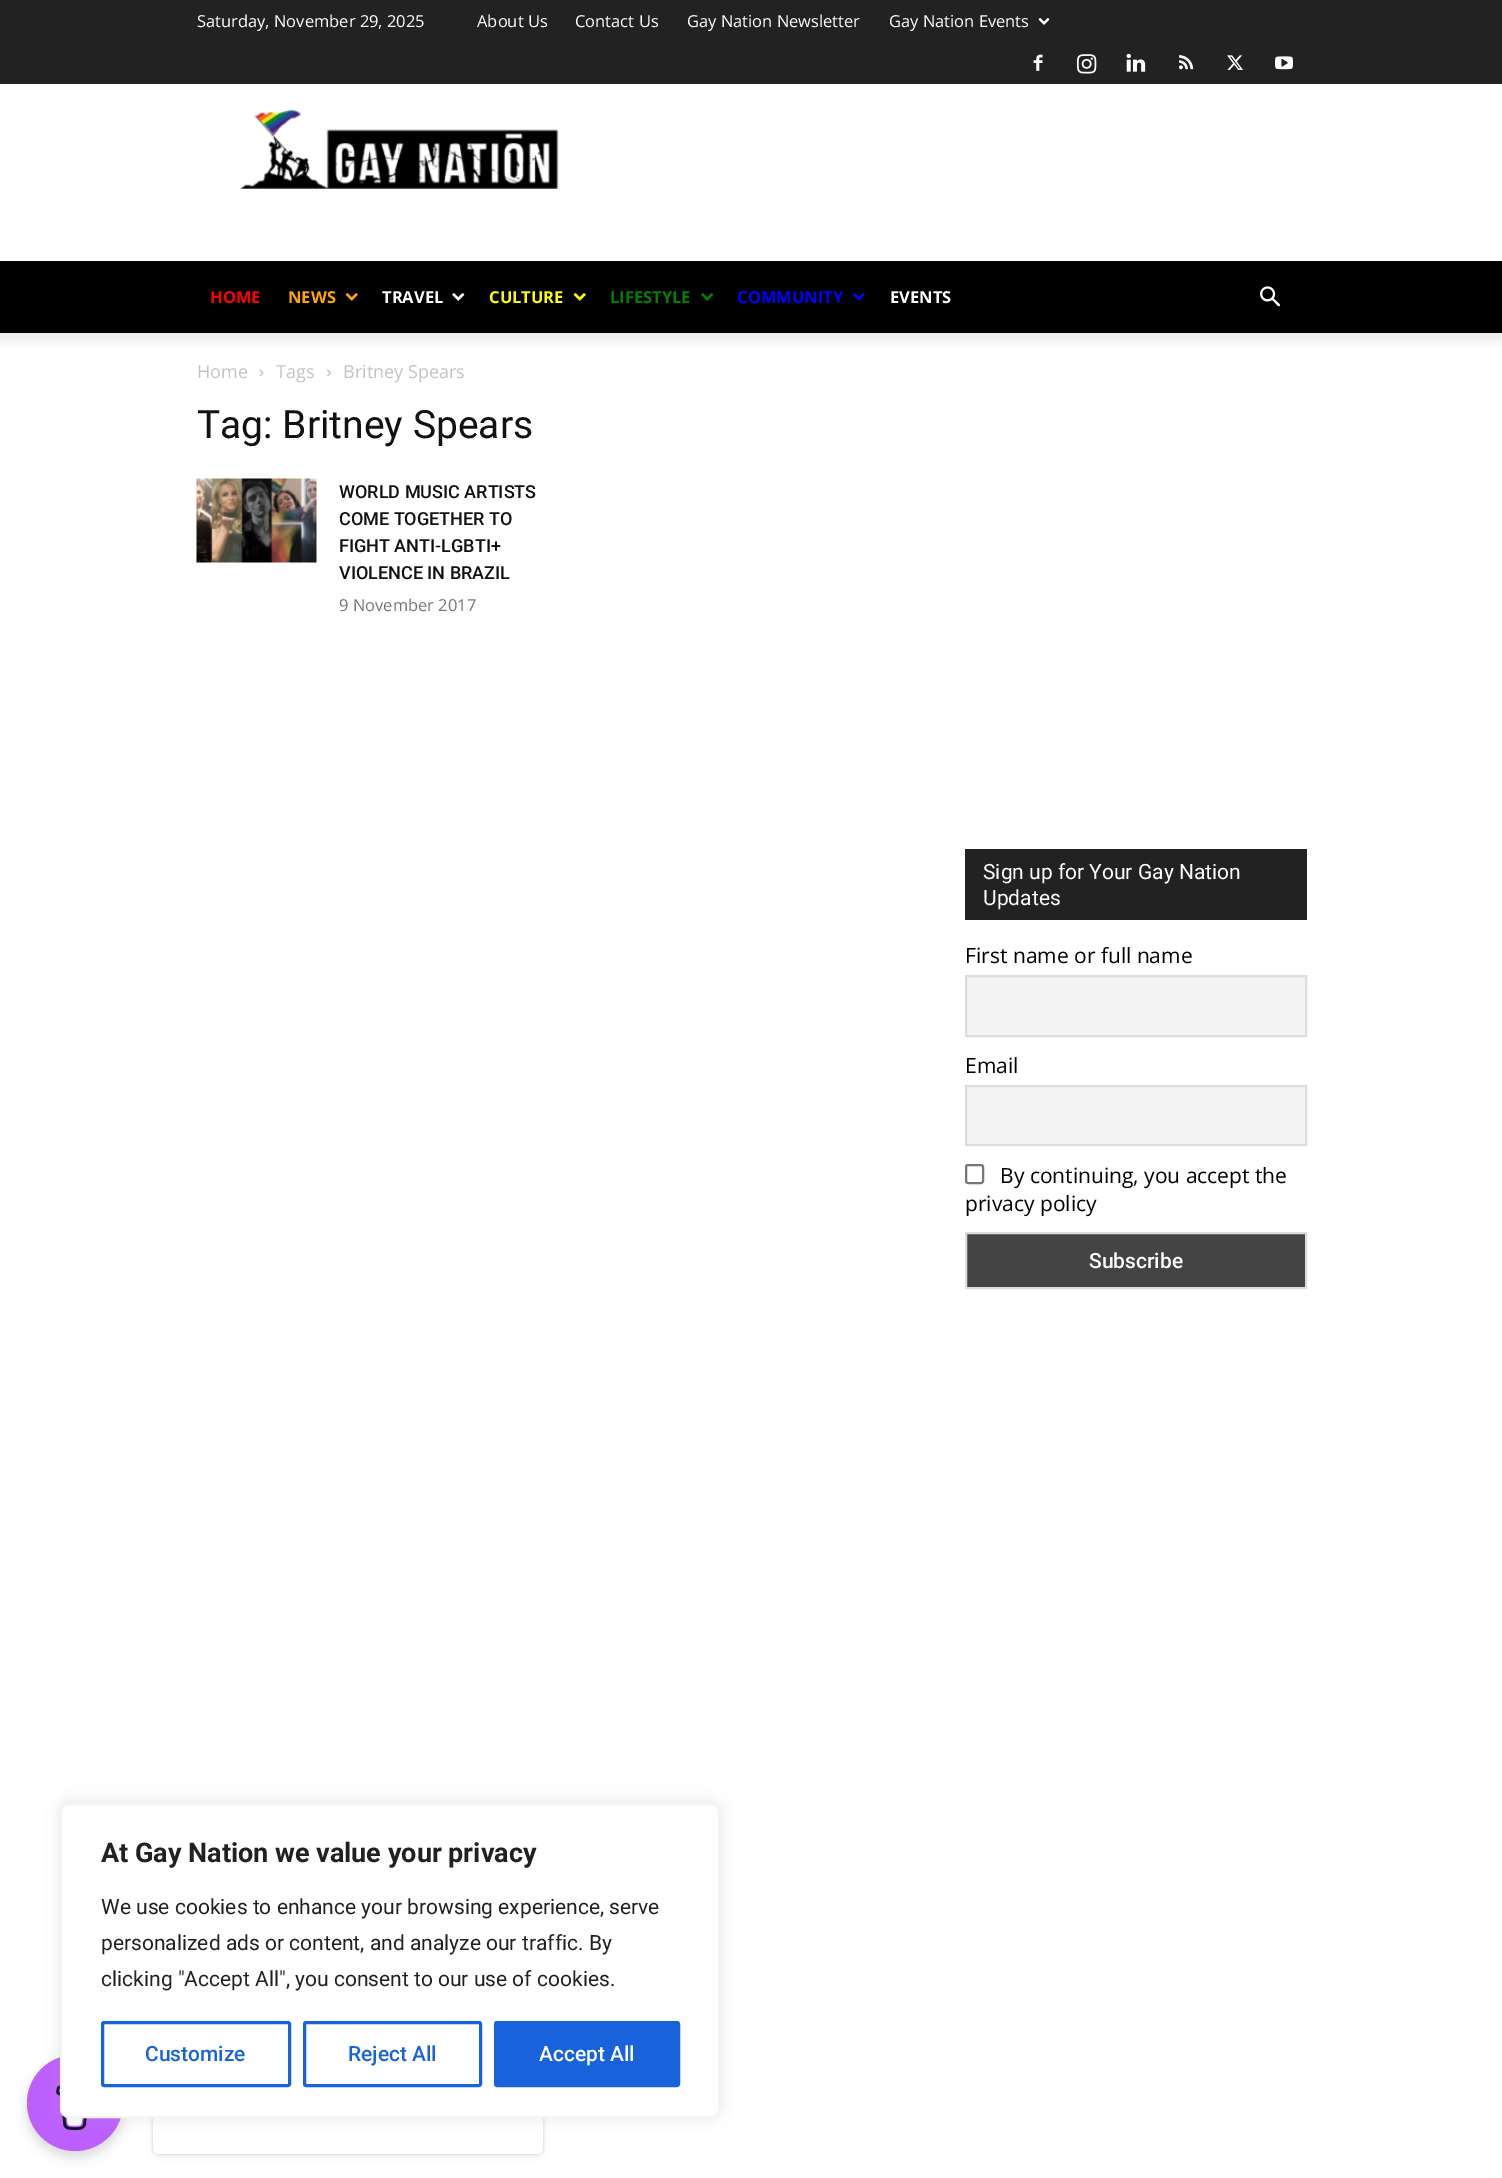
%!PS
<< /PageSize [1502 2178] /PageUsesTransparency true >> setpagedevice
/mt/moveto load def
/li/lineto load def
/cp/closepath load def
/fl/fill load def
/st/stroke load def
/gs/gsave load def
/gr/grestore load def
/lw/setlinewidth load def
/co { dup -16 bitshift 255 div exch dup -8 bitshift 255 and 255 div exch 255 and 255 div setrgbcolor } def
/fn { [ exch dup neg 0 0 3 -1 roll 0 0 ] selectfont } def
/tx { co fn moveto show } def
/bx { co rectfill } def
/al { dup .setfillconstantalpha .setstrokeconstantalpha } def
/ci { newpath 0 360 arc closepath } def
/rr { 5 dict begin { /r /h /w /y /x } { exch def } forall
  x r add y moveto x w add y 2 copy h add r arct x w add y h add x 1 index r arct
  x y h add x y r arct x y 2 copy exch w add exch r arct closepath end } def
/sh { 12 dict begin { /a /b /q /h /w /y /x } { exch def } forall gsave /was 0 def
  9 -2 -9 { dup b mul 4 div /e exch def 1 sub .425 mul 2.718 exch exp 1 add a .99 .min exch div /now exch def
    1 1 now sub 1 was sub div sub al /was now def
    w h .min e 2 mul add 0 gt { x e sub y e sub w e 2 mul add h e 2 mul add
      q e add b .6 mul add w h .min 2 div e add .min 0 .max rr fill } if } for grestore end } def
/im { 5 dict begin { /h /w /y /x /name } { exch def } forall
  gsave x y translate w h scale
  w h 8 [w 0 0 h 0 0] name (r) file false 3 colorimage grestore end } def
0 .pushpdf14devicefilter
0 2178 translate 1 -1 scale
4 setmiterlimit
0 0 1502 2178 16#FFFFFF bx
0 0 1502 84 16#222222 bx
(media/1.raw) 1038 18 12 7 im
(media/2.raw) 1033 54 10 17 im
(media/3.raw) 1077 54 20 20 im
(media/4.raw) 1126 53 20 19 im
(media/5.raw) 1179 55 15 15 im
(media/6.raw) 1227 55 16 15 im
(media/7.raw) 1275 56 18 14 im
(media/8.raw) 239 109 320 80 im
0 261 1502 72 16#000000 bx
(media/9.raw) 345 293 13 8 im
(media/10.raw) 452 293 13 8 im
(media/11.raw) 573 293 13 8 im
(media/12.raw) 701 293 13 8 im
(media/13.raw) 852 293 13 8 im
(media/14.raw) 1260 286 20 21 im
(media/15.raw) 0 333 1502 13 im
(media/16.raw) 259 369 5 8 im
(media/17.raw) 327 369 4 8 im
(media/18.raw) 196 478 121 85 im
965 849 342 71 16#222222 bx
16#F4F4F4 co
966 976 mt 1306 976 li 1306 1036 li 966 1036 li cp gs fl gr
16#DDDDDD co
2 lw
st
16#F4F4F4 co
966 1086 mt 1306 1086 li 1306 1145 li 966 1145 li cp gs fl gr
16#DDDDDD co
st
16#767676 co
966 1165 17 18 2 rr st
16#444444 co
966 1233 mt 1306 1233 li 1306 1288 li 966 1288 li cp gs fl gr
16#DDDDDD co
st
16#000000 co
27 2061 96 96 48 6 .15 sh
16#BD5FFF co
75 2103 48 ci fl
(media/19.raw) 56 2085 31 45 im
16#000000 co
153 2025 390 129 6 1.5 .15 sh
153 2028 390 129 6 4 .05 sh
16#FFFFFF co
153 2025 390 129 6 rr fl
16#ACABAB co
60 1802 660 315 9 7.5 .3 sh
16#FFFFFF co
61 1804 658 313 8 rr gs fl gr
16#F4F4F4 co
st
16#1863DC co
3 lw
102.5 2022.5 187 63 1.5 rr st
304.5 2022.5 176 63 1.5 rr st
495.5 2022.5 183 63 1.5 rr gs fl gr
st
(Saturday, November 29, 2025) 197 27 /OpenSans-Regular 16.5 16#FFFFFF tx
(About Us) 477 27 /OpenSans-Regular 16.5 16#FFFFFF tx
(Contact Us) 575 27 /OpenSans-Regular 16.5 16#FFFFFF tx
(Gay Nation Newsletter) 687 27 /OpenSans-Regular 16.5 16#FFFFFF tx
(Gay Nation Events) 889 27 /OpenSans-Regular 16.5 16#FFFFFF tx
(HOME) 210 303 /OpenSans-Bold 16.5 16#FF0000 tx
(NEWS) 288 303 /OpenSans-Bold 16.5 16#FFA500 tx
(TRAVEL) 382 303 /OpenSans-Bold 16.5 16#FFFFFF tx
(CULTURE) 489 303 /OpenSans-Bold 16.5 16#FFFF00 tx
(LIFESTYLE) 610 303 /OpenSans-Bold 16.5 16#008000 tx
(COMMUNITY) 737 303 /OpenSans-Bold 16.5 16#0000FF tx
(EVENTS) 890 303 /OpenSans-Bold 16.5 16#FFFFFF tx
(Home) 197 378 /OpenSans-Regular 18 16#C3C3C3 tx
(Tags) 276 378 /OpenSans-Regular 18 16#C3C3C3 tx
(Britney Spears) 343 378 /OpenSans-Regular 18 16#C3C3C3 tx
(Tag: Britney Spears) 197 438 /Roboto-Regular 39 16#111111 tx
(WORLD MUSIC ARTISTS) 339 498 /Roboto-Medium 18 16#111111 tx
(COME TOGETHER TO) 339 525 /Roboto-Medium 18 16#111111 tx
(FIGHT ANTI-LGBTI+) 339 552 /Roboto-Medium 18 16#111111 tx
(VIOLENCE IN BRAZIL) 339 579 /Roboto-Medium 18 16#111111 tx
(9 November 2017) 339 611 /OpenSans-Regular 16.5 16#767676 tx
(Sign up for Your Gay Nation) 983 879 /Roboto-Regular 21 16#FFFFFF tx
(Updates) 983 905 /Roboto-Regular 21 16#FFFFFF tx
(First name or full name) 965 963 /OpenSans-Regular 21 16#000000 tx
(Email) 965 1073 /OpenSans-Regular 21 16#000000 tx
(By continuing, you accept the) 1000 1183 /OpenSans-Regular 21 16#000000 tx
(privacy policy) 965 1211 /OpenSans-Regular 21 16#000000 tx
(Subscribe) 1089 1268 /Roboto-Medium 21 16#FFFFFF tx
(At Gay Nation we value your privacy) 101 1862 /Roboto-Bold 27 16#212121 tx
(We use cookies to enhance your browsing experience, serve) 101 1914 /Roboto-Regular 21 16#212121 tx
(personalized ads or content, and analyze our traffic. By) 101 1950 /Roboto-Regular 21 16#212121 tx
(clicking "Accept All", you consent to our use of cookies.) 101 1986 /Roboto-Regular 21 16#212121 tx
(Customize) 145 2061 /Roboto-Medium 21 16#1863DC tx
(Reject All) 348 2061 /Roboto-Medium 21 16#1863DC tx
(Accept All) 539 2061 /Roboto-Medium 21 16#FFFFFF tx
.poppdf14devicefilter showpage
